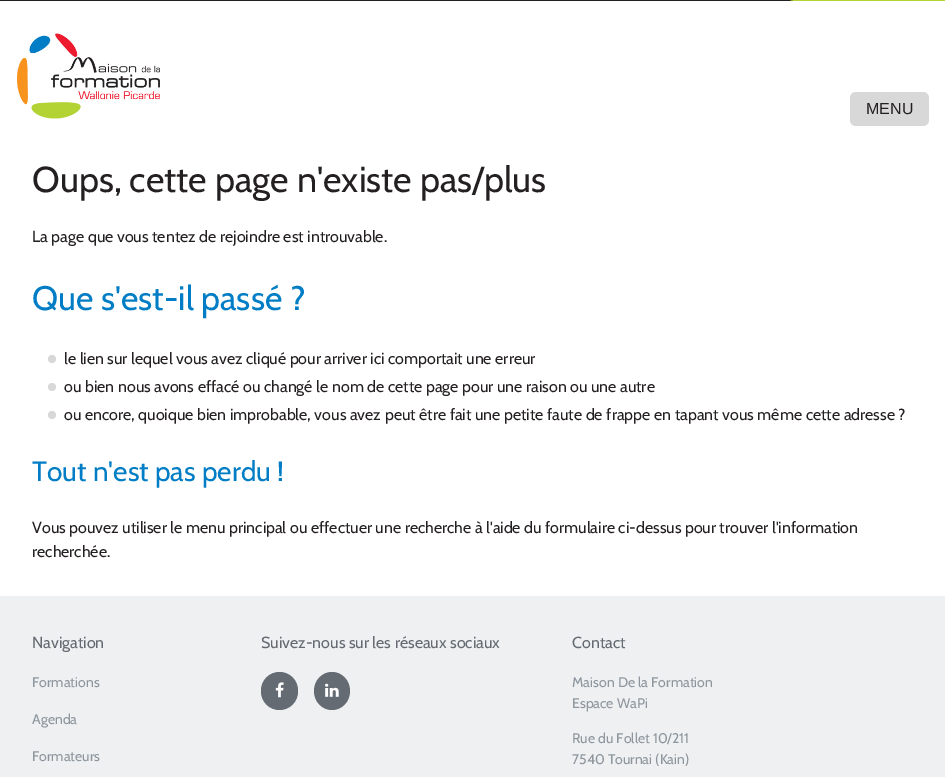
%!PS
<< /PageSize [945 777] >> setpagedevice
/mt/moveto load def
/li/lineto load def
/ct/curveto load def
/cp/closepath load def
/fl/fill load def
/co { dup -16 bitshift 255 div exch dup -8 bitshift 255 and 255 div exch 255 and 255 div setrgbcolor } def
/fn { [ exch dup neg 0 0 3 -1 roll 0 0 ] selectfont } def
/tx { co fn moveto show } def
/bx { co rectfill } def
/ci { newpath 0 360 arc closepath } def
/rr { 5 dict begin { /r /h /w /y /x } { exch def } forall
  x r add y moveto x w add y 2 copy h add r arct x w add y h add x 1 index r arct
  x y h add x y r arct x y 2 copy exch w add exch r arct closepath end } def
/im { 5 dict begin { /h /w /y /x /name } { exch def } forall
  gsave x y translate w h scale
  w h 8 [w 0 0 h 0 0] name (r) file false 3 colorimage grestore end } def
0 777 translate 1 -1 scale
4 setmiterlimit
0 0 945 777 16#FFFFFF bx
0 0 796 1 16#242021 bx
16#B3D334 co
796 -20 mt 945 -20 li 945 1 li 796 1 li 785 1 776 -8 776 -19 ct 776 0 li 776 -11 785 -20 796 -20 ct cp fl
(media/1.raw) 17 33 143 86 im
16#D8D8D8 co
850 92 79 34 6 rr fl
52 359 4 ci fl
52 387 4 ci fl
52 415 4 ci fl
0 596 945 181 16#EEF0F2 bx
16#656B72 co
261 672 37 38 18.5 rr fl
(media/2.raw) 275 682 9 16 im
332 672 mt 342 672 350 680.5 350 691 ct 350 701.5 342 710 332 710 ct 322 710 314 701.5 314 691 ct 314 680.5 322 672 332 672 ct cp fl
(media/3.raw) 325 683 14 14 im
(MENU) 866 114 /LiberationSans-Regular 16 16#242021 tx
(Oups, cette page n'existe pas/plus) 32 192 /Cabin-Regular 36 16#242021 tx
(La page que vous tentez de rejoindre est introuvable.) 32 242 /Cabin-Regular 16 16#242021 tx
(Que s'est-il passé ?) 32 310 /Cabin-Regular 34 16#017DC5 tx
(le lien sur lequel vous avez cliqué pour arriver ici comportait une erreur) 64 364 /Cabin-Regular 16 16#242021 tx
(ou bien nous avons effacé ou changé le nom de cette page pour une raison ou une autre) 64 392 /Cabin-Regular 16 16#242021 tx
(ou encore, quoique bien improbable, vous avez peut être fait une petite faute de frappe en tapant vous même cette adresse ?) 64 420 /Cabin-Regular 16 16#242021 tx
(Tout n'est pas perdu !) 32 481 /Cabin-Regular 28 16#017DC5 tx
(Vous pouvez utiliser le menu principal ou effectuer une recherche à l'aide du formulaire ci-dessus pour trouver l'information) 32 533 /Cabin-Regular 16 16#242021 tx
(recherchée.) 32 557 /Cabin-Regular 16 16#242021 tx
(Navigation) 32 648 /Cabin-Regular 16 16#656B72 tx
(Formations) 32 687 /Cabin-Regular 14 16#8D959D tx
(Agenda) 32 724 /Cabin-Regular 14 16#8D959D tx
(Formateurs) 32 761 /Cabin-Regular 14 16#8D959D tx
(Suivez-nous sur les réseaux sociaux) 261 648 /Cabin-Regular 16 16#656B72 tx
(Contact) 572 648 /Cabin-Regular 16 16#656B72 tx
(Maison De la Formation) 572 687 /Cabin-Regular 14 16#8D959D tx
(Espace WaPi) 572 708 /Cabin-Regular 14 16#8D959D tx
(Rue du Follet 10/211) 572 743 /Cabin-Regular 14 16#8D959D tx
(7540 Tournai \(Kain\)) 572 764 /Cabin-Regular 14 16#8D959D tx
showpage
